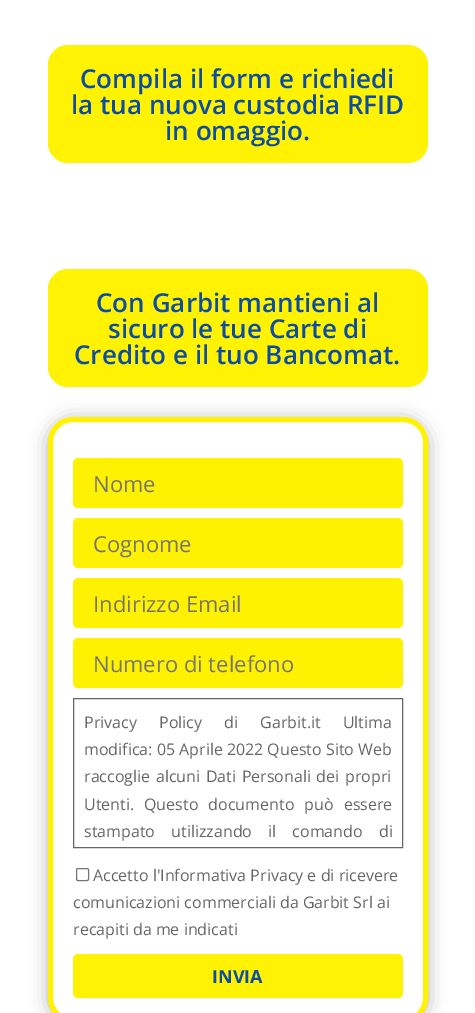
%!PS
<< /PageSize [475 1013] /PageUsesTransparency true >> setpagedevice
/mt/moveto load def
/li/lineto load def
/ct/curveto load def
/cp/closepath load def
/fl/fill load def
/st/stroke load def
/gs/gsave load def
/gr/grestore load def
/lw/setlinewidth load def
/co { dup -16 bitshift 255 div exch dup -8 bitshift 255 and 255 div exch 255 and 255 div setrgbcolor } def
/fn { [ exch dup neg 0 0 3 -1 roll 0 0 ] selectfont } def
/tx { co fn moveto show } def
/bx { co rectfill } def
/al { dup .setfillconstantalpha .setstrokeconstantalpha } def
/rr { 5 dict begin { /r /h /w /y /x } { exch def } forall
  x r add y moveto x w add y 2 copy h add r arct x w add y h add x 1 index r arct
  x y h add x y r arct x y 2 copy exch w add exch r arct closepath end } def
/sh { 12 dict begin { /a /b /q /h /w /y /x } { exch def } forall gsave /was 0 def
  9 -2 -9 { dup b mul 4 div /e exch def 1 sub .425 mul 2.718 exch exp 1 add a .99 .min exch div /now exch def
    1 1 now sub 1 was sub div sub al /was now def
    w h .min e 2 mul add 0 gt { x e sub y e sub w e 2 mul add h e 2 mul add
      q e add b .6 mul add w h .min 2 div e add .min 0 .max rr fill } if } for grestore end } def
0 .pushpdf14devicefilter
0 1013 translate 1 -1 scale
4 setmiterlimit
0 0 475 1013 16#FFFFFF bx
16#FFF203 co
48 45 380 118 20 rr fl
48 269 380 118 20 rr fl
gs
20 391 mt 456 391 li 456 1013 li 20 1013 li cp 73 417 mt 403 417 li 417 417 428 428 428 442 ct 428 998 li 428 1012 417 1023 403 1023 ct 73 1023 li 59 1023 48 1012 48 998 ct 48 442 li 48 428 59 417 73 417 ct cp eoclip newpath
16#000000 co
48 419 380 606 25 9 .3 sh
gr
5 lw
50.5 419.5 375 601 22.5 rr st
16#FFF200 co
73 458 330 50 5 rr fl
73 518 330 50 5 rr fl
73 578 330 50 5 rr fl
73 638 330 50 5 rr fl
16#666666 co
1 lw
73.5 698.5 329 149 rectstroke
16#767676 co
76.5 868.5 12 12 1.5 rr st
16#FFF203 co
73 954 330 44 5 rr fl
(Compila il form e richiedi) 80 88 /OpenSans-SemiBold 26 16#0C4DA2 tx
(la tua nuova custodia RFID) 71 114 /OpenSans-SemiBold 26 16#0C4DA2 tx
(in omaggio.) 165 140 /OpenSans-SemiBold 26 16#0C4DA2 tx
(Con Garbit mantieni al) 96 312 /OpenSans-SemiBold 26 16#0C4DA2 tx
(sicuro le tue Carte di) 108 338 /OpenSans-SemiBold 26 16#0C4DA2 tx
(Credito e il tuo Bancomat.) 74 364 /OpenSans-SemiBold 26 16#0C4DA2 tx
(Nome) 93 492 /OpenSans-Regular 22 16#757575 tx
(Cognome) 93 552 /OpenSans-Regular 22 16#757575 tx
(Indirizzo Email) 93 612 /OpenSans-Regular 22 16#757575 tx
(Numero di telefono) 93 672 /OpenSans-Regular 22 16#757575 tx
/OpenSans-Regular 16 fn
16#666666 co
84 728 mt 18 0 32 (Privacy Policy di Garbit.it Ultima) widthshow
(modifica: 05 Aprile 2022 Questo Sito Web) 84 755 /OpenSans-Regular 16 16#666666 tx
84 782 mt 1.5 0 32 (raccoglie alcuni Dati Personali dei propri) widthshow
(Utenti.) 84 810 /OpenSans-Regular 16 16#666666 tx
144 810 mt 6 0 32 (Questo documento può essere) widthshow
84 837 mt 12 0 32 (stampato utilizzando il comando di) widthshow
(Accetto l'Informativa Privacy e di ricevere) 93 881 /OpenSans-Regular 16 16#666666 tx
(comunicazioni commerciali da Garbit Srl ai) 73 908 /OpenSans-Regular 16 16#666666 tx
(recapiti da me indicati) 73 935 /OpenSans-Regular 16 16#666666 tx
(INVIA) 212 983 /OpenSans-Bold 18 16#0C4DA2 tx
.poppdf14devicefilter showpage
